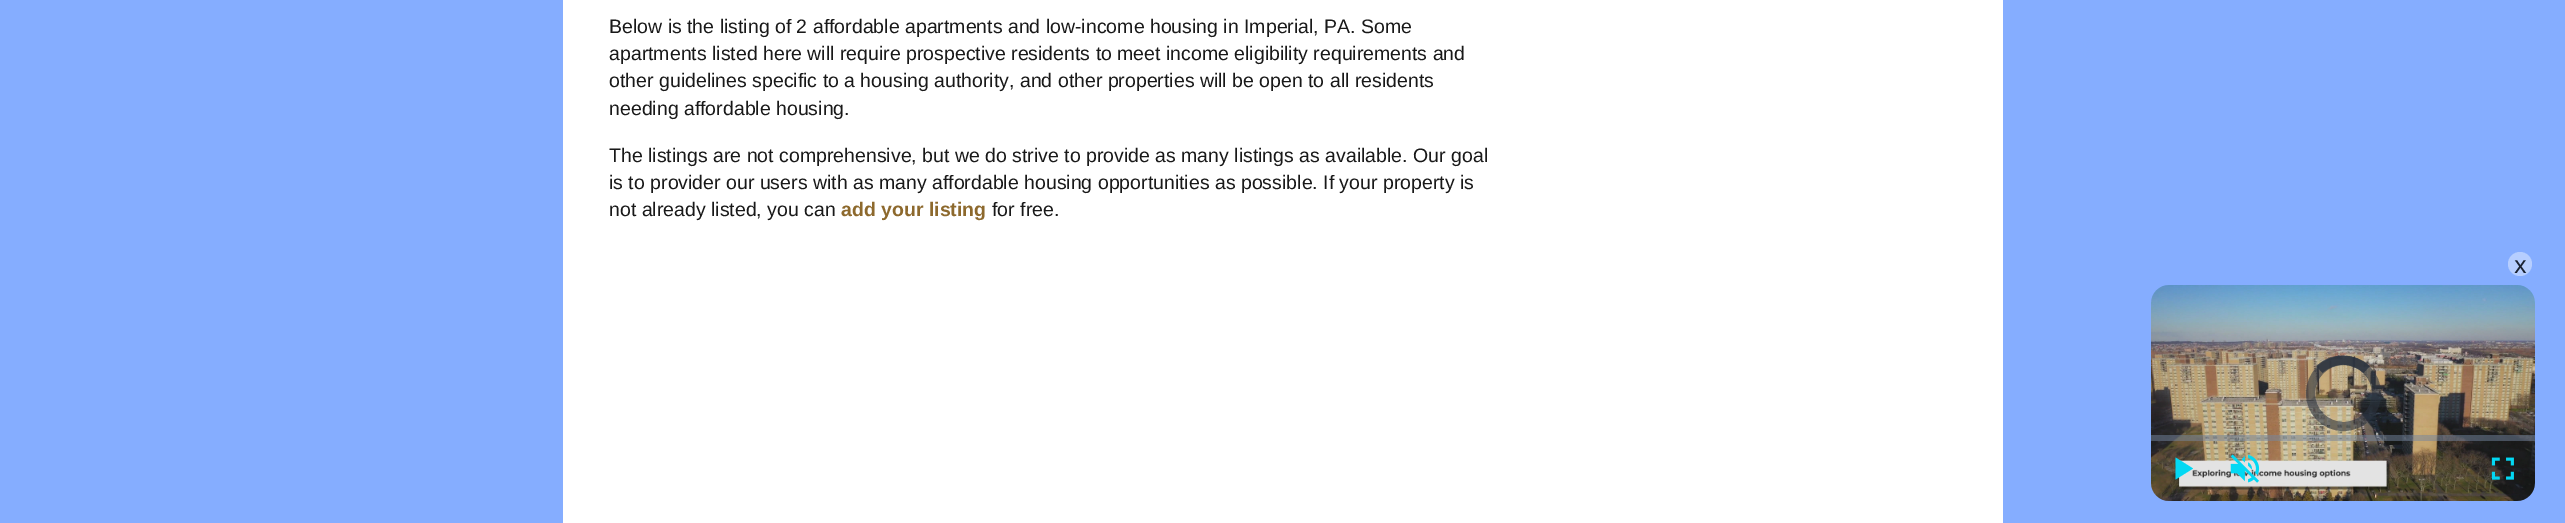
%!PS
<< /PageSize [2565 523] /PageUsesTransparency true >> setpagedevice
/mt/moveto load def
/li/lineto load def
/ct/curveto load def
/cp/closepath load def
/fl/fill load def
/st/stroke load def
/lw/setlinewidth load def
/co { dup -16 bitshift 255 div exch dup -8 bitshift 255 and 255 div exch 255 and 255 div setrgbcolor } def
/fn { [ exch dup neg 0 0 3 -1 roll 0 0 ] selectfont } def
/tx { co fn moveto show } def
/bx { co rectfill } def
/al { dup .setfillconstantalpha .setstrokeconstantalpha } def
/ci { newpath 0 360 arc closepath } def
/im { 5 dict begin { /h /w /y /x /name } { exch def } forall
  gsave x y translate w h scale
  w h 8 [w 0 0 h 0 0] name (r) file false 3 colorimage grestore end } def
0 .pushpdf14devicefilter
0 523 translate 1 -1 scale
4 setmiterlimit
0 0 2565 523 16#85ADFF bx
563 0 1440 523 16#FFFFFF bx
16#B6CEFF co
2520 264 12 ci fl
(media/1.raw) 2151 285 384 216 im
0.59 al
16#2B333F co
9 lw
2343.5 393.5 33 ci st
2319.5 369.5 mt 2332.5 357 2353.5 357 2366.5 369.5 ct st
2319.5 369.5 mt 2332.5 357 2353.5 357 2366.5 369.5 ct st
0.5 al
2151 435 384 6 16#73859F bx
1 al
16#03D8F3 co
2175.5 457.5 mt 2175.5 479.5 li 2193 468.5 li cp fl
(media/2.raw) 2230 454 30 29 im
(media/3.raw) 2491 457 23 23 im
(Below is the listing of 2 affordable apartments and low-income housing in Imperial, PA. Some) 609 33 /LiberationSans-Regular 19.5 16#191919 tx
(apartments listed here will require prospective residents to meet income eligibility requirements and) 609 60 /LiberationSans-Regular 19.5 16#191919 tx
(other guidelines specific to a housing authority, and other properties will be open to all residents) 609 87 /LiberationSans-Regular 19.5 16#191919 tx
(needing affordable housing.) 609 115 /LiberationSans-Regular 19.5 16#191919 tx
(The listings are not comprehensive, but we do strive to provide as many listings as available. Our goal) 609 162 /LiberationSans-Regular 19.5 16#191919 tx
(is to provider our users with as many affordable housing opportunities as possible. If your property is) 609 189 /LiberationSans-Regular 19.5 16#191919 tx
(not already listed, you can) 609 216 /LiberationSans-Regular 19.5 16#191919 tx
(add your listing) 841 216 /LiberationSans-Bold 19.5 16#8D692D tx
(for free.) 992 216 /LiberationSans-Regular 19.5 16#191919 tx
(x) 2514 273 /NotoSans-Regular 24 16#1B2333 tx
.poppdf14devicefilter showpage
